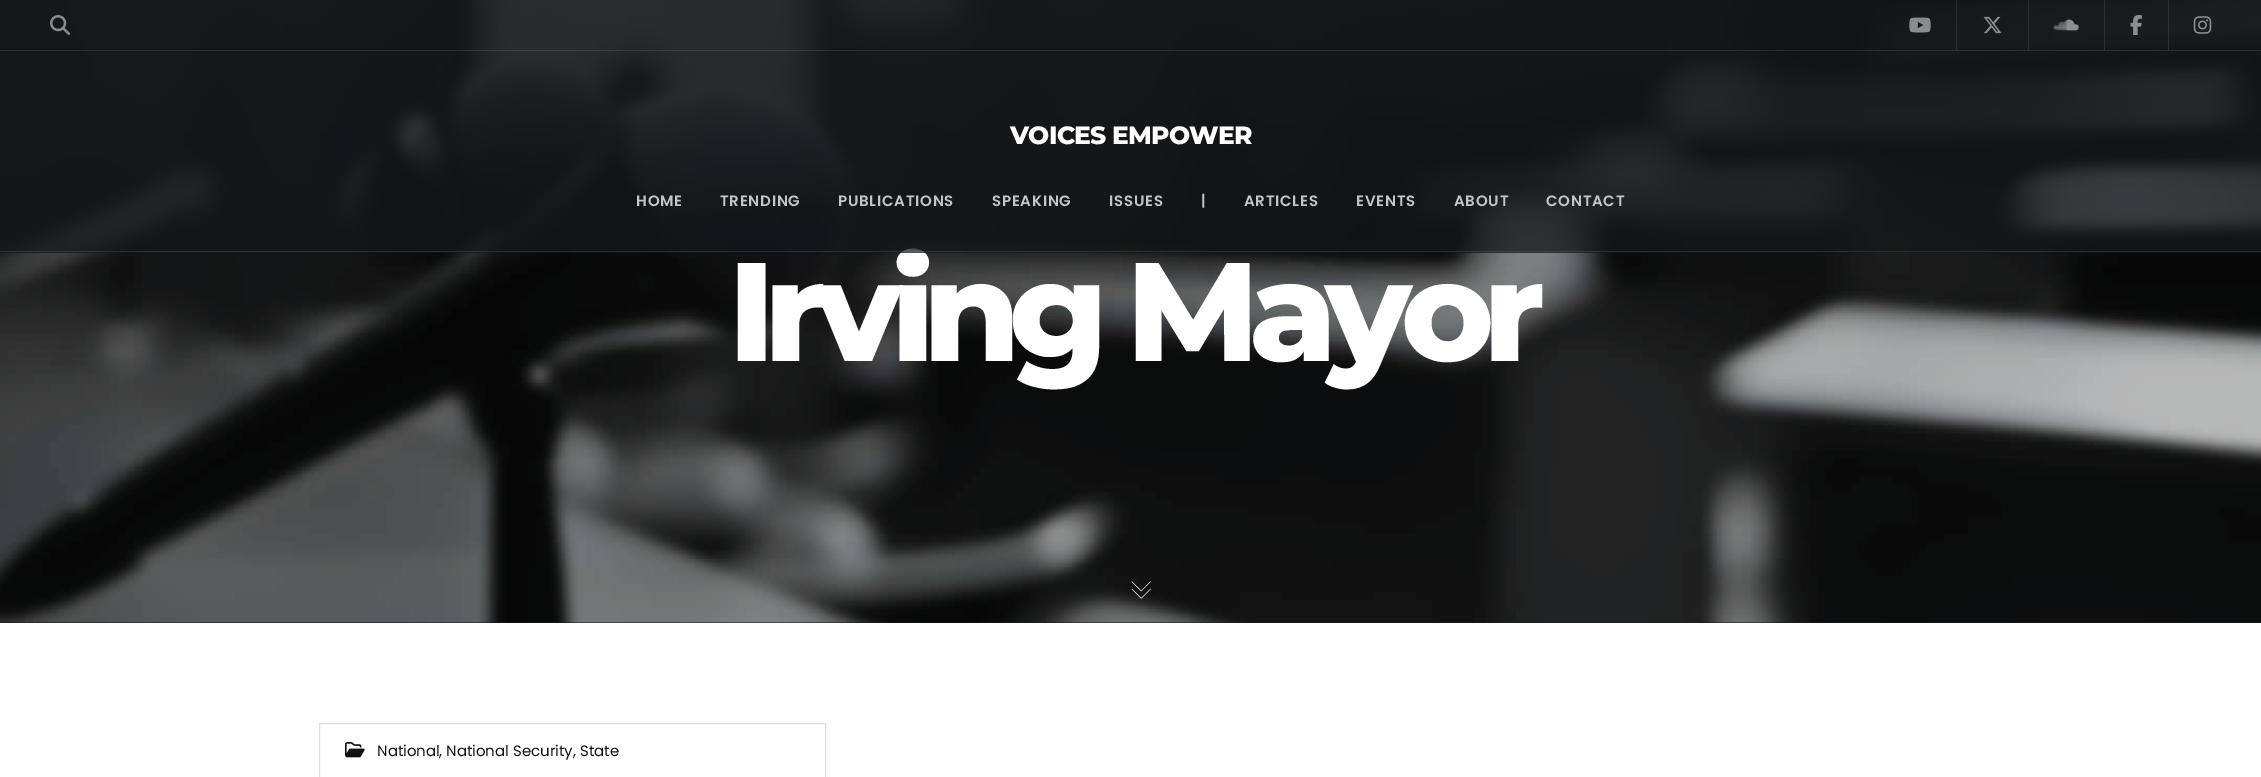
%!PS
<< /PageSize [2261 777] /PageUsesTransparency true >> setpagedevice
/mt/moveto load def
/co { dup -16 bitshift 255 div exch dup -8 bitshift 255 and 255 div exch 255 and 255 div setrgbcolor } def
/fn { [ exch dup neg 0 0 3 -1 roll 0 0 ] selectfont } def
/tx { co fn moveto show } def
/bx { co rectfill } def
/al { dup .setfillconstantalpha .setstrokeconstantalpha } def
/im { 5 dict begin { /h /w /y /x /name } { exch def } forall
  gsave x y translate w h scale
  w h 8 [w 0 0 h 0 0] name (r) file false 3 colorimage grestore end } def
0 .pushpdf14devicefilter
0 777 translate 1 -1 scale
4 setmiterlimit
0 0 2261 777 16#FFFFFF bx
0 622 2261 1 16#141618 bx
(media/7.raw) 0 0 2261 623 im
(media/8.raw) 1131 581 20 18 im
16#DDDDDD co
319.5 723.5 506 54 rectstroke
(media/9.raw) 345 742 20 16 im
/Montserrat-ExtraBold 140 fn
16#FFFFFF co
728 361 mt -11.25 0 (Irving Mayor) ashow
0.75 al
0 0 2261 253 16#141618 bx
1 al
(media/2.raw) 1909 17 22 16 im
0.1 al
1956 0 1 50 16#FFFFFF bx
1 al
(media/3.raw) 1983 16 19 18 im
0.1 al
2028 0 1 50 16#FFFFFF bx
1 al
(media/4.raw) 2053 19 26 12 im
0.1 al
2104 0 1 50 16#FFFFFF bx
1 al
(media/5.raw) 2130 15 12 20 im
0.1 al
2168 0 1 50 16#FFFFFF bx
1 al
(media/6.raw) 2193 16 19 18 im
(media/1.raw) 50 15 20 20 im
0.1 al
0 50 2261 1 16#FFFFFF bx
/Montserrat-ExtraBold 25 fn
1 al
1010 144 mt -.75 0 (VOICES EMPOWER) ashow
/Poppins-SemiBold 15 fn
16#C5C5C6 co
1546 206 mt .75 0 (CONTACT) ashow
1454 206 mt .75 0 (ABOUT) ashow
1356 206 mt .75 0 (EVENTS) ashow
1244 206 mt .75 0 (ARTICLES) ashow
1201 206 mt .75 0 (|) ashow
1109 206 mt .75 0 (ISSUES) ashow
992 206 mt .75 0 (SPEAKING) ashow
838 206 mt .75 0 (PUBLICATIONS) ashow
720 206 mt .75 0 (TRENDING) ashow
636 206 mt .75 0 (HOME) ashow
0.1 al
0 251 2261 1 16#FFFFFF bx
1 al
(National) 377 756 /Poppins-Regular 15 16#111111 tx
(,) 439 756 /Poppins-Regular 15 16#111111 tx
(National Security) 446 756 /Poppins-Regular 15 16#111111 tx
(,) 573 756 /Poppins-Regular 15 16#111111 tx
(State) 580 756 /Poppins-Regular 15 16#111111 tx
.poppdf14devicefilter showpage
